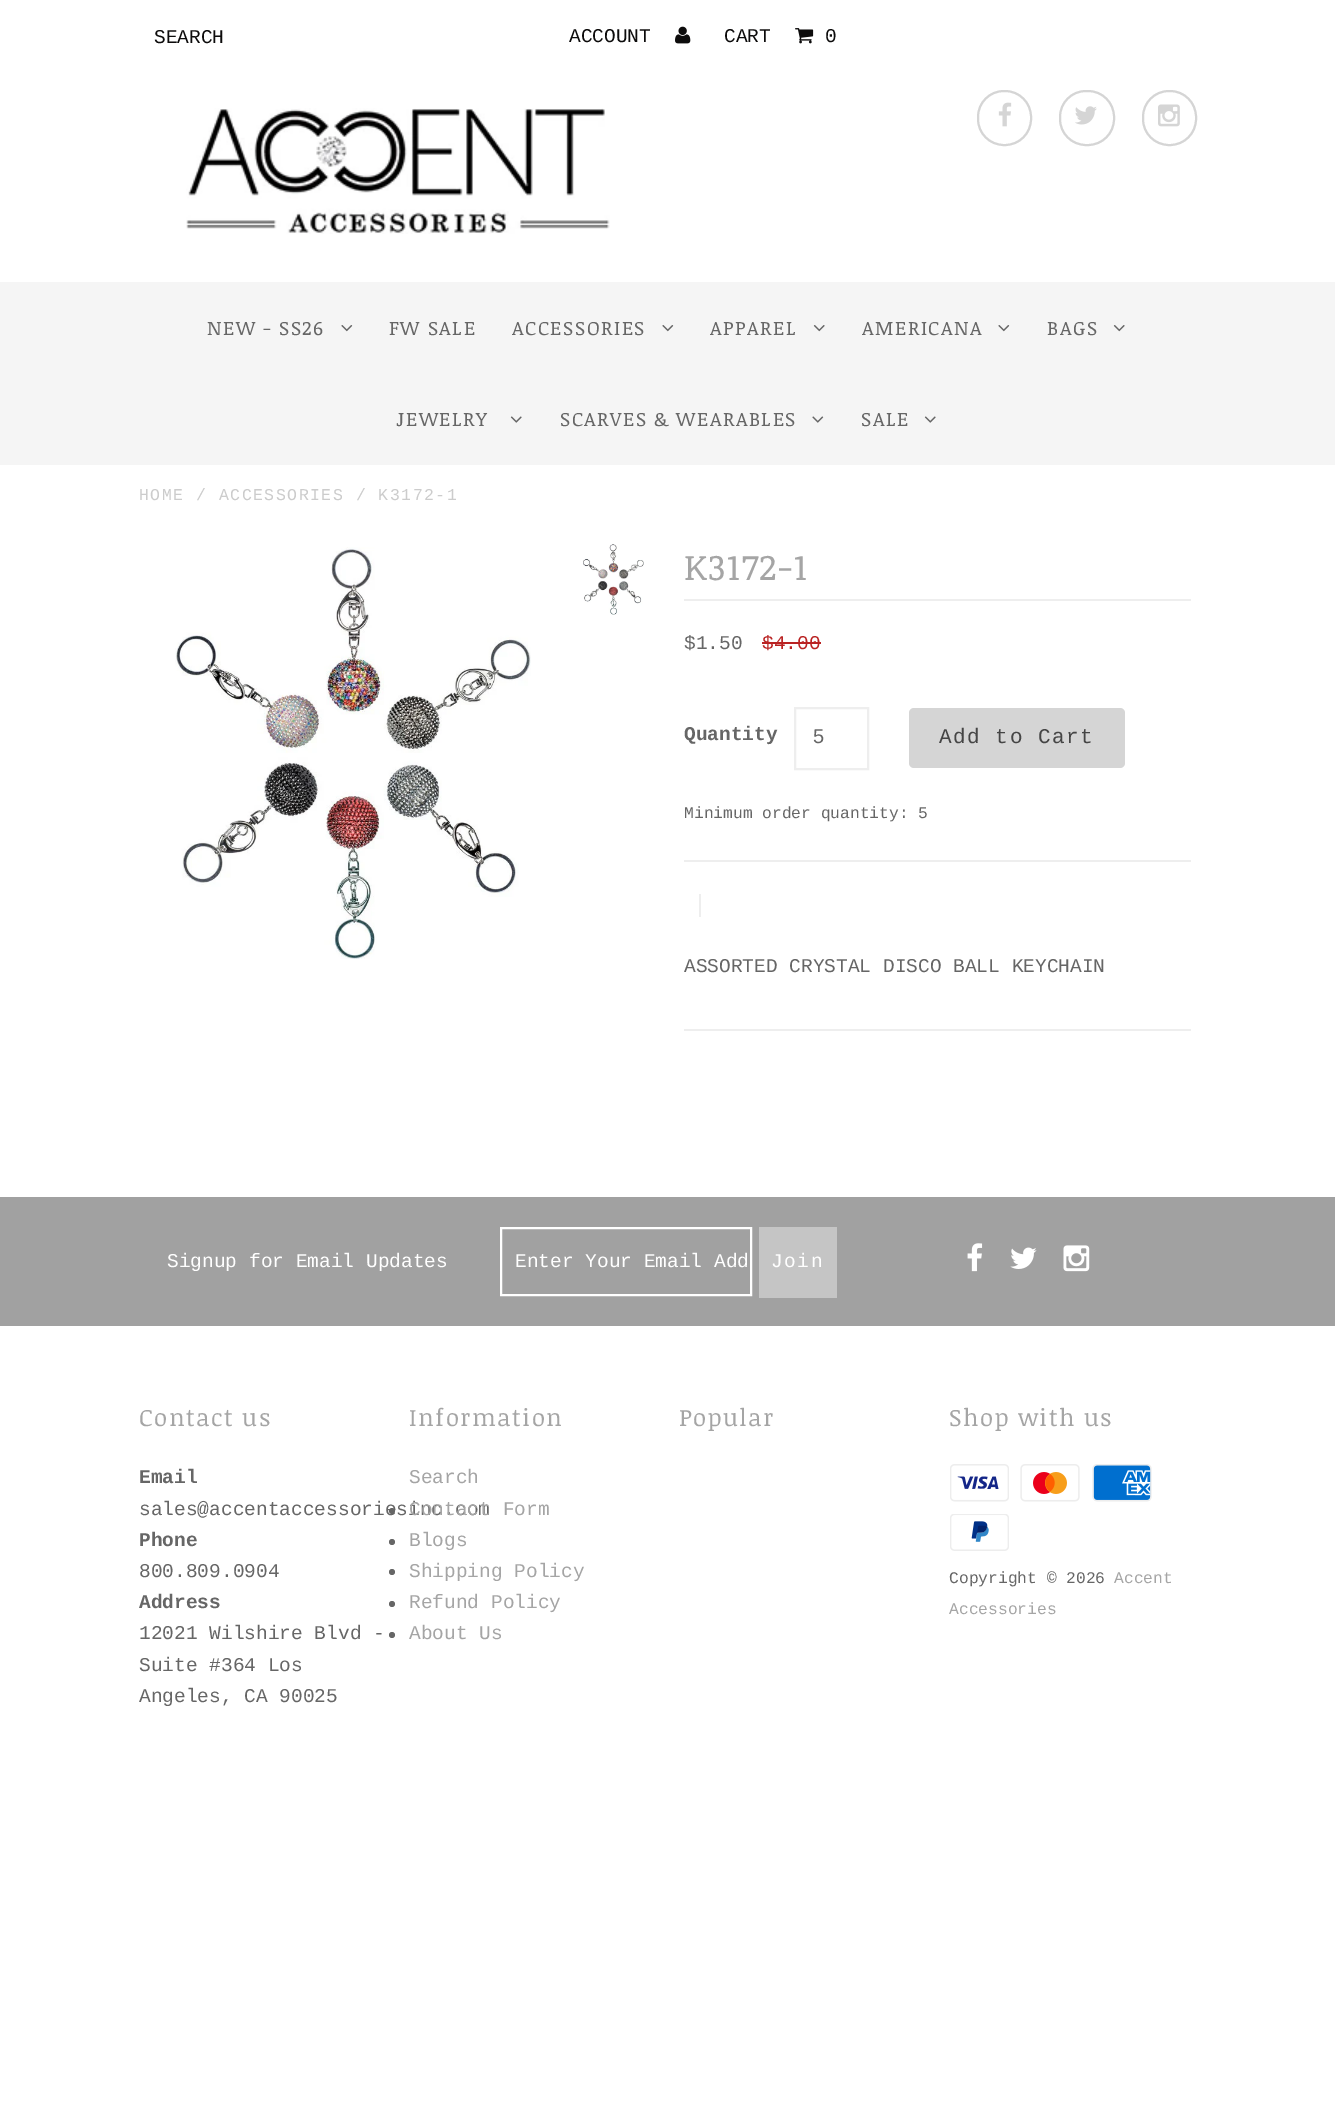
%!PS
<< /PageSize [1335 2113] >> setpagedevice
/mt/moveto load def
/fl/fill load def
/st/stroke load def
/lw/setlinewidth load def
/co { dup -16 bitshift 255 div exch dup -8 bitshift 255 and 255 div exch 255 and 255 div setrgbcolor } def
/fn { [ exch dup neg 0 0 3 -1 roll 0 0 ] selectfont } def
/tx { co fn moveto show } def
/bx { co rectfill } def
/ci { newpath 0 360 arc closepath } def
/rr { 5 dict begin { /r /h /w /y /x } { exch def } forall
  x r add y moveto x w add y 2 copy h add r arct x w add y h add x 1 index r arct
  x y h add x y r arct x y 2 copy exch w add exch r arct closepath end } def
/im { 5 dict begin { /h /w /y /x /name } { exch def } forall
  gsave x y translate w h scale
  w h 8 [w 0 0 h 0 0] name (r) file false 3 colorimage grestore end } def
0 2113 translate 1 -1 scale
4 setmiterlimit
0 0 1335 2113 16#FFFFFF bx
(media/1.raw) 675 26 16 18 im
(media/2.raw) 795 28 19 16 im
(media/3.raw) 186 108 424 126 im
16#D5D5D5 co
2 lw
978 91 53 54 26 rr st
(media/4.raw) 998 102 14 25 im
1060 91 54 54 26 rr st
(media/5.raw) 1075 106 22 19 im
1143 91 53 54 26 rr st
(media/6.raw) 1158 104 22 23 im
0 282 1335 183 16#F5F5F5 bx
(media/7.raw) 341 325 12 7 im
(media/7.raw) 662 325 12 7 im
(media/8.raw) 813 325 12 7 im
(media/7.raw) 998 325 12 7 im
(media/8.raw) 1113 325 12 7 im
(media/9.raw) 510 416 12 7 im
(media/10.raw) 812 416 12 7 im
(media/9.raw) 924 416 12 7 im
(media/11.raw) 175 547 356 412 im
(media/12.raw) 583 544 61 71 im
684 599 507 2 16#EEEEEE bx
762 642 59 2 16#BA2323 bx
684 860 507 2 16#EEEEEE bx
795 708 73 61 rectstroke
16#D5D5D5 co
909 708 216 60 5 rr fl
699 894 2 23 16#EEEEEE bx
684 1029 507 2 16#EEEEEE bx
0 1197 1335 129 16#A1A1A1 bx
16#FFFFFF co
501 1228 250 67 rectstroke
759 1227 78 71 16#C5C5C5 bx
(media/13.raw) 967 1243 16 29 im
(media/14.raw) 1010 1247 27 22 im
(media/15.raw) 1063 1245 27 27 im
16#666666 co
392 1511 3 ci fl
392 1542 3 ci fl
392 1572 3 ci fl
392 1604 3 ci fl
392 1635 3 ci fl
(media/16.raw) 950 1464 59 38 im
(media/17.raw) 1020 1464 60 38 im
(media/18.raw) 1092 1464 60 38 im
(media/19.raw) 950 1514 59 37 im
(SEARCH) 154 43 /LiberationMono-Regular 19.5 16#0D0C0C tx
(ACCOUNT) 569 42 /LiberationMono-Regular 19.5 16#0D0C0C tx
(CART) 724 42 /LiberationMono-Regular 19.5 16#0D0C0C tx
(0) 825 42 /LiberationMono-Regular 19.5 16#0D0C0C tx
/NoticiaText-Regular 19.5 fn
16#666666 co
207 335 mt 1.5 0 (NEW - SS26) ashow
389 335 mt 1.5 0 (FW SALE) ashow
512 335 mt 1.5 0 (ACCESSORIES) ashow
710 335 mt 1.5 0 (APPAREL) ashow
862 335 mt 1.5 0 (AMERICANA) ashow
1047 335 mt 1.5 0 (BAGS) ashow
396 426 mt 1.5 0 (JEWELRY) ashow
560 426 mt 1.5 0 (SCARVES & WEARABLES) ashow
861 426 mt 1.5 0 (SALE) ashow
/LiberationMono-Regular 16.5 fn
16#CCCCCC co
139 500 mt 1.5 0 (HOME / ACCESSORIES / K3172-1) ashow
/NoticiaText-Regular 36 fn
16#A5A5A5 co
684 580 mt 1.5 0 (K3172-1) ashow
($1.50) 684 649 /LiberationMono-Regular 19.5 16#666666 tx
($4.00) 762 649 /LiberationMono-Regular 19.5 16#BA2323 tx
(Quantity) 684 740 /LiberationMono-Bold 19.5 16#666666 tx
(5) 813 743 /LiberationSans-Regular 20 16#666666 tx
/LiberationMono-Regular 21 fn
16#454545 co
939 743 mt 1.5 0 (Add to Cart) ashow
(Minimum order quantity: 5) 684 818 /LiberationMono-Regular 16.25 16#666666 tx
(ASSORTED CRYSTAL DISCO BALL KEYCHAIN) 684 972 /LiberationMono-Regular 19.5 16#666666 tx
(Signup for Email Updates) 167 1267 /LiberationMono-Regular 19.5 16#FFFFFF tx
(Enter Your Email Add) 515 1267 /LiberationMono-Regular 19.5 16#FFFFFF tx
771 1267 mt 1.5 0 (Join) ashow
/NoticiaText-Regular 24 fn
16#A5A5A5 co
139 1426 mt 1.5 0 (Contact us) ashow
(Email) 139 1483 /LiberationMono-Bold 19.5 16#666666 tx
(sales@accentaccessoriesinc.com) 139 1515 /LiberationMono-Regular 19.5 16#666666 tx
(Phone) 139 1546 /LiberationMono-Bold 19.5 16#666666 tx
(800.809.0904) 139 1577 /LiberationMono-Regular 19.5 16#666666 tx
(Address) 139 1608 /LiberationMono-Bold 19.5 16#666666 tx
(12021 Wilshire Blvd -) 139 1639 /LiberationMono-Regular 19.5 16#666666 tx
(Suite #364 Los) 139 1671 /LiberationMono-Regular 19.5 16#666666 tx
(Angeles, CA 90025) 139 1702 /LiberationMono-Regular 19.5 16#666666 tx
/NoticiaText-Regular 24 fn
16#A5A5A5 co
409 1426 mt 1.5 0 (Information) ashow
(Search) 409 1483 /LiberationMono-Regular 19.5 16#A5A5A5 tx
(Contact Form) 409 1515 /LiberationMono-Regular 19.5 16#A5A5A5 tx
(Blogs) 409 1546 /LiberationMono-Regular 19.5 16#A5A5A5 tx
(Shipping Policy) 409 1577 /LiberationMono-Regular 19.5 16#A5A5A5 tx
(Refund Policy) 409 1608 /LiberationMono-Regular 19.5 16#A5A5A5 tx
(About Us) 409 1639 /LiberationMono-Regular 19.5 16#A5A5A5 tx
/NoticiaText-Regular 24 fn
679 1426 mt 1.5 0 (Popular) ashow
949 1426 mt 1.5 0 (Shop with us) ashow
(Copyright © 2026) 949 1583 /LiberationMono-Regular 16.25 16#666666 tx
(Accent) 1114 1583 /LiberationMono-Regular 16.25 16#A5A5A5 tx
(Accessories) 949 1614 /LiberationMono-Regular 16.25 16#A5A5A5 tx
showpage
